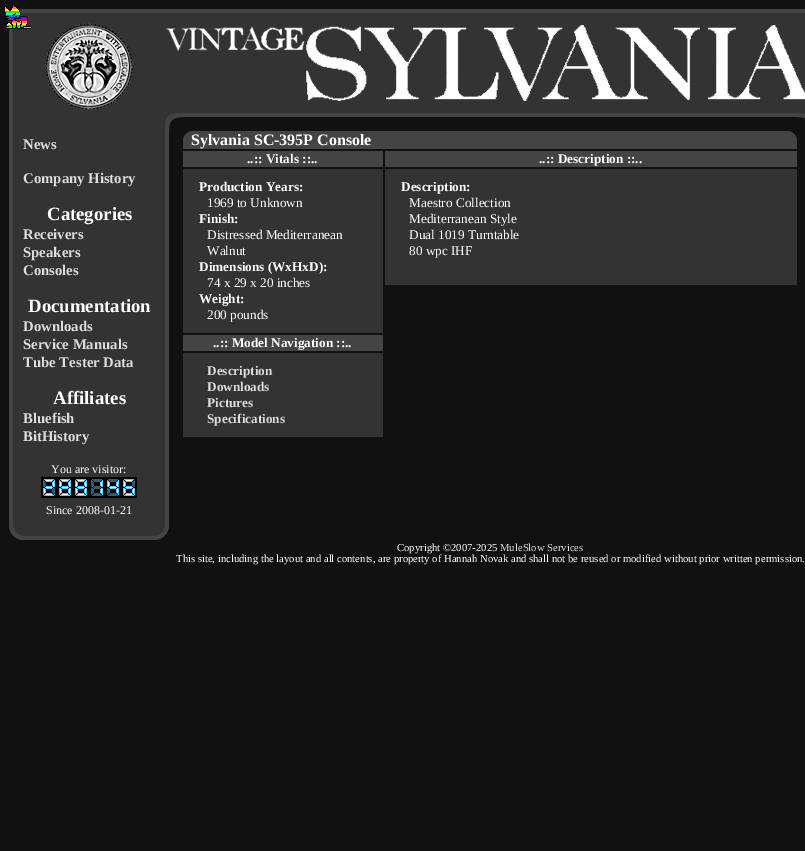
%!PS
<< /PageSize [805 851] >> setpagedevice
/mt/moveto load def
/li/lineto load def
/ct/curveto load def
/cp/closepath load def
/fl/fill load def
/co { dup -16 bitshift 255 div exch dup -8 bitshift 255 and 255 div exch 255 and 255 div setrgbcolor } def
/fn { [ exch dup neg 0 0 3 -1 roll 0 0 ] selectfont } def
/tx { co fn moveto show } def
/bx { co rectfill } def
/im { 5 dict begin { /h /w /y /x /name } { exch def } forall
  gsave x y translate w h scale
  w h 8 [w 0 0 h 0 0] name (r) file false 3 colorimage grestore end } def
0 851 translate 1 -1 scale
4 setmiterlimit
0 0 805 851 16#111111 bx
16#333333 co
24 9 mt 165 9 li 165 117 li 9 117 li 9 24 li 9 15.5 15.5 9 24 9 ct cp fl
16#444444 co
24 9 mt 165 9 li 165 117 li 9 117 li 9 24 li 9 16 16 9 24 9 ct cp 24 13 mt 165 13 li 165 117 li 13 117 li 13 24 li 13 18 18 13 24 13 ct cp eofill
(media/1.raw) 4 4 28 25 im
(media/2.raw) 45 23 88 87 im
165 113 640 4 16#444444 bx
180 113 mt 176 113 172 114.5 169.5 117.5 ct 172 120 li 175.5 117 179.5 117 184 117 ct 188 113 li cp fl
165 13 640 100 16#333333 bx
176 109 mt 172 109 168 110.5 165.5 113.5 ct 168 116 li 171.5 113 175.5 113 180 113 ct 184 109 li cp fl
165 117 4 401 16#444444 bx
165 136 mt 169 132 li 169 127.5 169 123.5 172 120 ct 169.5 117.5 li 166.5 120 165 124 165 128 ct cp fl
13 117 152 401 16#333333 bx
161 132 mt 165 128 li 165 123.5 165 119.5 168 116 ct 165.5 113.5 li 162.5 116 161 120 161 124 ct cp fl
165 9 640 4 16#444444 bx
(media/3.raw) 165 25 640 76 im
792 113 mt 796 117 li 800.5 117 804.5 117 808 120 ct 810.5 117.5 li 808 114.5 804 113 800 113 ct cp fl
16#333333 co
796 109 mt 800 113 li 804.5 113 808.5 113 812 116 ct 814.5 113.5 li 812 110.5 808 109 804 109 ct cp fl
9 117 4 401 16#444444 bx
(media/4.raw) 41 477 16 21 im
(media/5.raw) 57 477 16 21 im
(media/5.raw) 73 477 16 21 im
(media/6.raw) 89 477 16 21 im
(media/7.raw) 105 477 16 21 im
(media/8.raw) 121 477 16 21 im
16#333333 co
9 518 mt 169 518 li 169 525 li 169 533.5 162.5 540 154 540 ct 24 540 li 15.5 540 9 533.5 9 525 ct cp fl
16#444444 co
9 518 mt 169 518 li 169 525 li 169 533 162 540 154 540 ct 24 540 li 16 540 9 533 9 525 ct cp 13 518 mt 165 518 li 165 525 li 165 531 160 536 154 536 ct 24 536 li 18 536 13 531 13 525 ct cp eofill
193 131 mt 787 131 li 792.5 131 797 135.5 797 141 ct 797 149 li 183 149 li 183 141 li 183 135.5 187.5 131 193 131 ct cp fl
183 151 200 16 16#444444 bx
385 151 412 16 16#444444 bx
183 169 200 164 16#333333 bx
183 335 200 16 16#444444 bx
183 353 200 84 16#333333 bx
385 169 412 116 16#333333 bx
(News) 23 149 /LiberationSerif-Bold 14.75 16#DDDDDD tx
(Company History) 23 183 /LiberationSerif-Bold 14.75 16#DDDDDD tx
(Categories) 47 220 /LiberationSerif-Bold 18.75 16#FFFFFF tx
(Receivers) 23 239 /LiberationSerif-Bold 14.75 16#DDDDDD tx
(Speakers) 23 257 /LiberationSerif-Bold 14.75 16#DDDDDD tx
(Consoles) 23 275 /LiberationSerif-Bold 14.75 16#DDDDDD tx
(Documentation) 28 312 /LiberationSerif-Bold 18.75 16#FFFFFF tx
(Downloads) 23 331 /LiberationSerif-Bold 14.75 16#DDDDDD tx
(Service Manuals) 23 349 /LiberationSerif-Bold 14.75 16#DDDDDD tx
(Tube Tester Data) 23 367 /LiberationSerif-Bold 14.75 16#DDDDDD tx
(Affiliates) 53 404 /LiberationSerif-Bold 18.75 16#FFFFFF tx
(Bluefish) 23 423 /LiberationSerif-Bold 14.75 16#DDDDDD tx
(BitHistory) 23 441 /LiberationSerif-Bold 14.75 16#DDDDDD tx
(You are visitor:) 51 473 /LiberationSerif-Regular 12 16#FFFFFF tx
(Since 2008-01-21) 46 514 /LiberationSerif-Regular 12 16#FFFFFF tx
(Sylvania SC-395P Console) 191 145 /LiberationSerif-Bold 16 16#FFFFFF tx
(..:: Vitals ::..) 247 163 /LiberationSerif-Bold 13.25 16#FFFFFF tx
(..:: Description ::..) 539 163 /LiberationSerif-Bold 13.25 16#FFFFFF tx
(Production Years:) 199 191 /LiberationSerif-Bold 13.25 16#FFFFFF tx
(1969 to Unknown) 207 207 /LiberationSerif-Regular 13.25 16#FFFFFF tx
(Finish:) 199 223 /LiberationSerif-Bold 13.25 16#FFFFFF tx
(Distressed Mediterranean) 207 239 /LiberationSerif-Regular 13.25 16#FFFFFF tx
(Walnut) 207 255 /LiberationSerif-Regular 13.25 16#FFFFFF tx
(Dimensions \(WxHxD\):) 199 271 /LiberationSerif-Bold 13.25 16#FFFFFF tx
(74 x 29 x 20 inches) 207 287 /LiberationSerif-Regular 13.25 16#FFFFFF tx
(Weight:) 199 303 /LiberationSerif-Bold 13.25 16#FFFFFF tx
(200 pounds) 207 319 /LiberationSerif-Regular 13.25 16#FFFFFF tx
(..:: Model Navigation ::..) 213 347 /LiberationSerif-Bold 13.25 16#FFFFFF tx
(Description) 207 375 /LiberationSerif-Bold 13.25 16#DDDDDD tx
(Downloads) 207 391 /LiberationSerif-Bold 13.25 16#DDDDDD tx
(Pictures) 207 407 /LiberationSerif-Bold 13.25 16#DDDDDD tx
(Specifications) 207 423 /LiberationSerif-Bold 13.25 16#DDDDDD tx
(Description:) 401 191 /LiberationSerif-Bold 13.25 16#FFFFFF tx
(Maestro Collection) 409 207 /LiberationSerif-Regular 13.25 16#FFFFFF tx
(Mediterranean Style) 409 223 /LiberationSerif-Regular 13.25 16#FFFFFF tx
(Dual 1019 Turntable) 409 239 /LiberationSerif-Regular 13.25 16#FFFFFF tx
(80 wpc IHF) 409 255 /LiberationSerif-Regular 13.25 16#FFFFFF tx
(Copyright ©2007-2025) 397 551 /LiberationSerif-Regular 10.67 16#FFFFFF tx
(MuleSlow Services) 500 551 /LiberationSerif-Regular 10.67 16#DDDDDD tx
(This site, including the layout and all contents, are property of Hannah Novak and shall not be reused or modified without prior written permission.) 176 562 /LiberationSerif-Regular 10.67 16#FFFFFF tx
showpage
